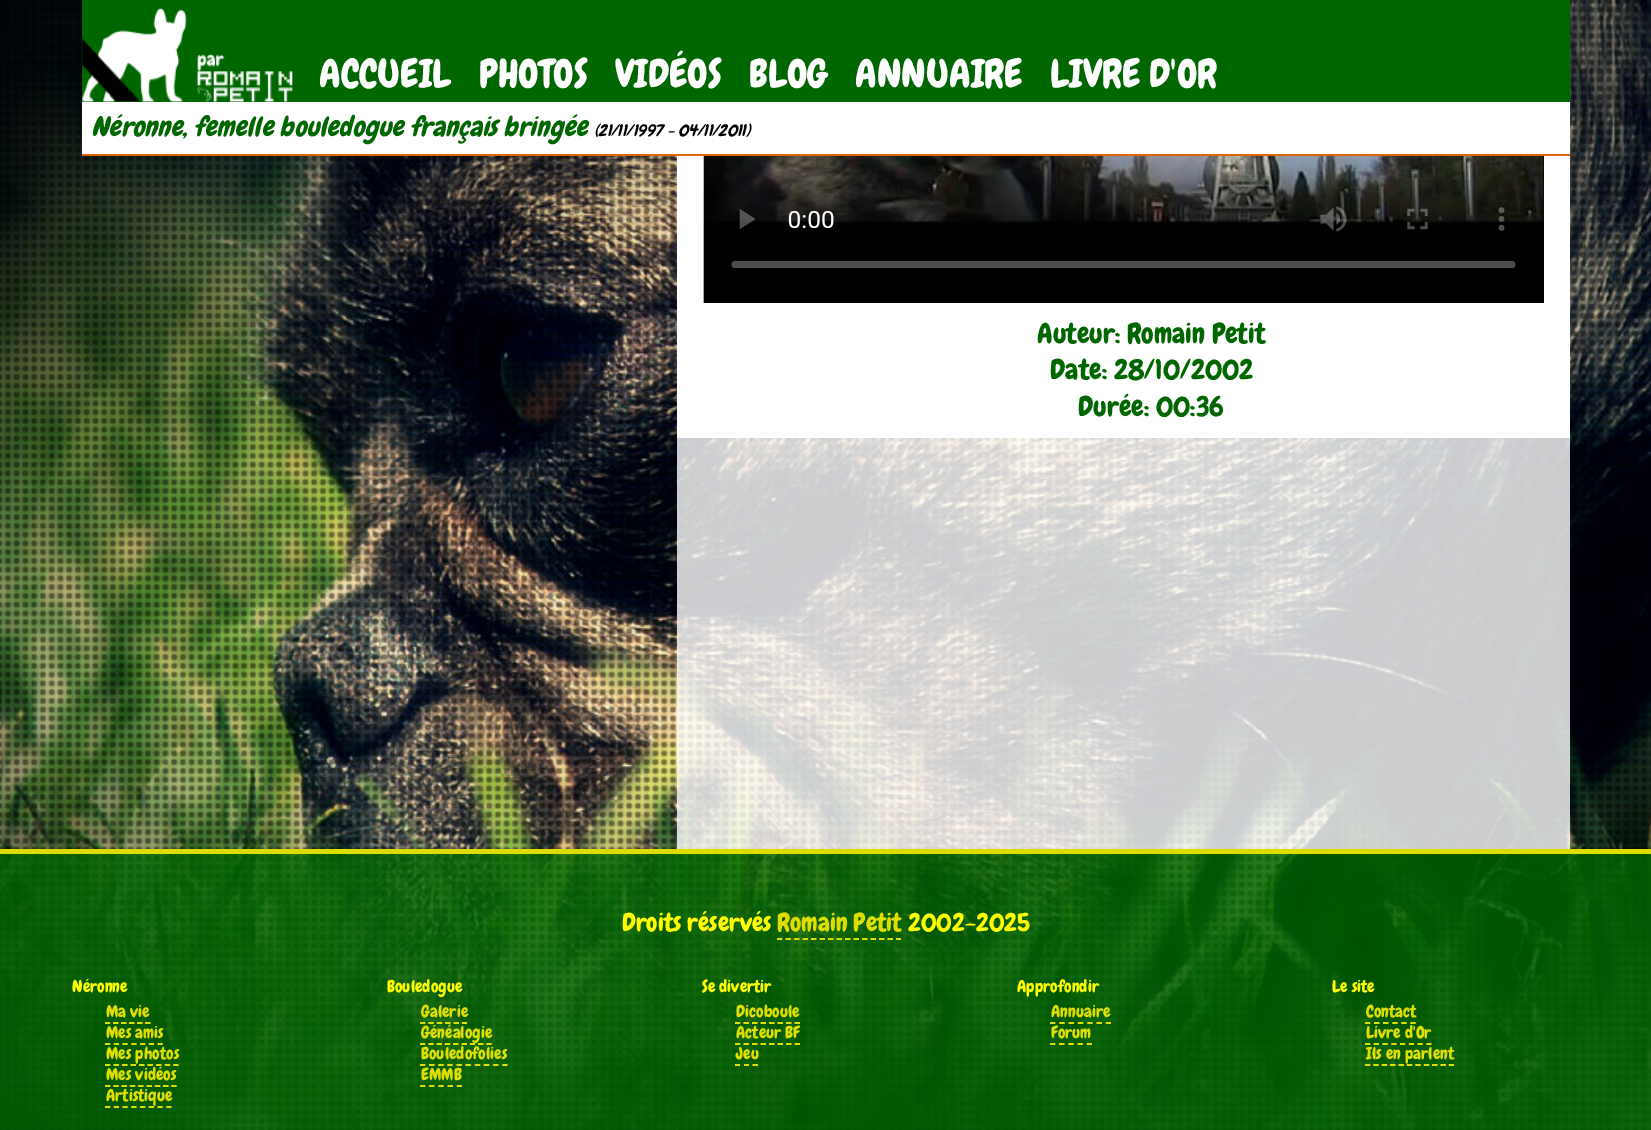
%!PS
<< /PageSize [1651 1130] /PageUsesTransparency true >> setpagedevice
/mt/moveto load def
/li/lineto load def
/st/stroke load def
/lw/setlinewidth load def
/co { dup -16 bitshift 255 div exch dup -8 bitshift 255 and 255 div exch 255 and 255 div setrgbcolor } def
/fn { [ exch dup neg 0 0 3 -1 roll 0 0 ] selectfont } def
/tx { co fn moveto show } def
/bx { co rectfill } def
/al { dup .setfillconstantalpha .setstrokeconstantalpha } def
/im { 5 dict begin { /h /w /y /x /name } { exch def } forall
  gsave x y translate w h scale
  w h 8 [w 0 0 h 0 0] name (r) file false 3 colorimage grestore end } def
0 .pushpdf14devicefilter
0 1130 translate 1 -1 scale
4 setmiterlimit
0 0 1651 1130 16#FFFFFF bx
(media/1.raw) 0 0 1651 1130 im
82 102 1488 52 16#FFFFFF bx
82 154 1488 2 16#DD6600 bx
82 0 1488 102 16#006600 bx
(media/2.raw) 82 8 211 94 im
0.8 al
677 438 893 411 16#FFFFFF bx
1 al
677 156 893 282 16#FFFFFF bx
1543 156 1 147 16#000000 bx
(media/3.raw) 703 156 841 147 im
0.8 al
0 854 1651 276 16#006600 bx
1 al
0 849 1651 5 16#DDDD00 bx
1.8 lw
[5.25 3.26] 0 setdash
777 939 mt 901 939 li st
[5.25 2.8] 0 setdash
105 1023 mt 150.5 1023 li st
[5.25 3.5] 0 setdash
105 1044 mt 163 1044 li st
[5.25 3.29] 0 setdash
105 1065 mt 178.5 1065 li st
[5.25 3.06] 0 setdash
105 1086 mt 177 1086 li st
[5.25 3.5] 0 setdash
105 1107 mt 171.5 1107 li st
[5.25 3.15] 0 setdash
420 1023 mt 467 1023 li st
[5.25 3.06] 0 setdash
420 1044 mt 492 1044 li st
[5.25 3.89] 0 setdash
420 1065 mt 507.5 1065 li st
[5.25 3.94] 0 setdash
420 1086 mt 462 1086 li st
[5.25 3.26] 0 setdash
735 1023 mt 800 1023 li st
735 1044 mt 800 1044 li st
[] 0 setdash
735 1065 mt 740 1065 li 744 1065 mt 749 1065 li 752.5 1065 mt 758 1065 li st
[5.25 4.08] 0 setdash
1050 1023 mt 1111 1023 li st
[5.25 3.94] 0 setdash
1050 1044 mt 1092 1044 li st
[5.25 3.85] 0 setdash
1365 1023 mt 1416 1023 li st
[5.25 3.5] 0 setdash
1365 1044 mt 1431.5 1044 li st
[5.25 3.15] 0 setdash
1365 1065 mt 1454 1065 li st
(ACCUEIL) 319 87 /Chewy-Regular 39 16#FFFFFF tx
(PHOTOS) 479 87 /Chewy-Regular 39 16#FFFFFF tx
(VIDÉOS) 615 87 /Chewy-Regular 39 16#FFFFFF tx
(BLOG) 749 87 /Chewy-Regular 39 16#FFFFFF tx
(ANNUAIRE) 855 87 /Chewy-Regular 39 16#FFFFFF tx
(LIVRE D'OR) 1050 87 /Chewy-Regular 39 16#FFFFFF tx
(Néronne, femelle bouledogue français bringée) 91 136 /Chewy-Italic 27.4 16#006600 tx
(\(21/11/1997 - 04/11/2011\)) 594 136 /Chewy-Italic 16.5 16#000000 tx
(Auteur: Romain Petit) 1037 343 /Chewy-Regular 28 16#006600 tx
(Date: 28/10/2002) 1050 379 /Chewy-Regular 28 16#006600 tx
(Durée: 00:36) 1078 416 /Chewy-Regular 28 16#006600 tx
(Droits réservés) 622 931 /Chewy-Regular 25.25 16#FFFF00 tx
(Romain Petit) 777 931 /Chewy-Regular 25.25 16#DDDD00 tx
(2002-2025) 908 931 /Chewy-Regular 25.25 16#FFFF00 tx
(Néronne) 72 992 /Chewy-Regular 16.75 16#FFFF00 tx
(Ma vie) 106 1017 /Chewy-Regular 16.75 16#DDDD00 tx
(Mes amis) 106 1038 /Chewy-Regular 16.75 16#DDDD00 tx
(Mes photos) 106 1059 /Chewy-Regular 16.75 16#DDDD00 tx
(Mes vidéos) 106 1080 /Chewy-Regular 16.75 16#DDDD00 tx
(Artistique) 106 1101 /Chewy-Regular 16.75 16#DDDD00 tx
(Bouledogue) 387 992 /Chewy-Regular 16.75 16#FFFF00 tx
(Galerie) 421 1017 /Chewy-Regular 16.75 16#DDDD00 tx
(Généalogie) 421 1038 /Chewy-Regular 16.75 16#DDDD00 tx
(Bouledofolies) 421 1059 /Chewy-Regular 16.75 16#DDDD00 tx
(EMMB) 421 1080 /Chewy-Regular 16.75 16#DDDD00 tx
(Se divertir) 702 992 /Chewy-Regular 16.75 16#FFFF00 tx
(Dicoboule) 736 1017 /Chewy-Regular 16.75 16#DDDD00 tx
(Acteur BF) 736 1038 /Chewy-Regular 16.75 16#DDDD00 tx
(Jeu) 736 1059 /Chewy-Regular 16.75 16#DDDD00 tx
(Approfondir) 1017 992 /Chewy-Regular 16.75 16#FFFF00 tx
(Annuaire) 1051 1017 /Chewy-Regular 16.75 16#DDDD00 tx
(Forum) 1051 1038 /Chewy-Regular 16.75 16#DDDD00 tx
(Le site) 1332 992 /Chewy-Regular 16.75 16#FFFF00 tx
(Contact) 1366 1017 /Chewy-Regular 16.75 16#DDDD00 tx
(Livre d'Or) 1366 1038 /Chewy-Regular 16.75 16#DDDD00 tx
(Ils en parlent) 1366 1059 /Chewy-Regular 16.75 16#DDDD00 tx
.poppdf14devicefilter showpage
